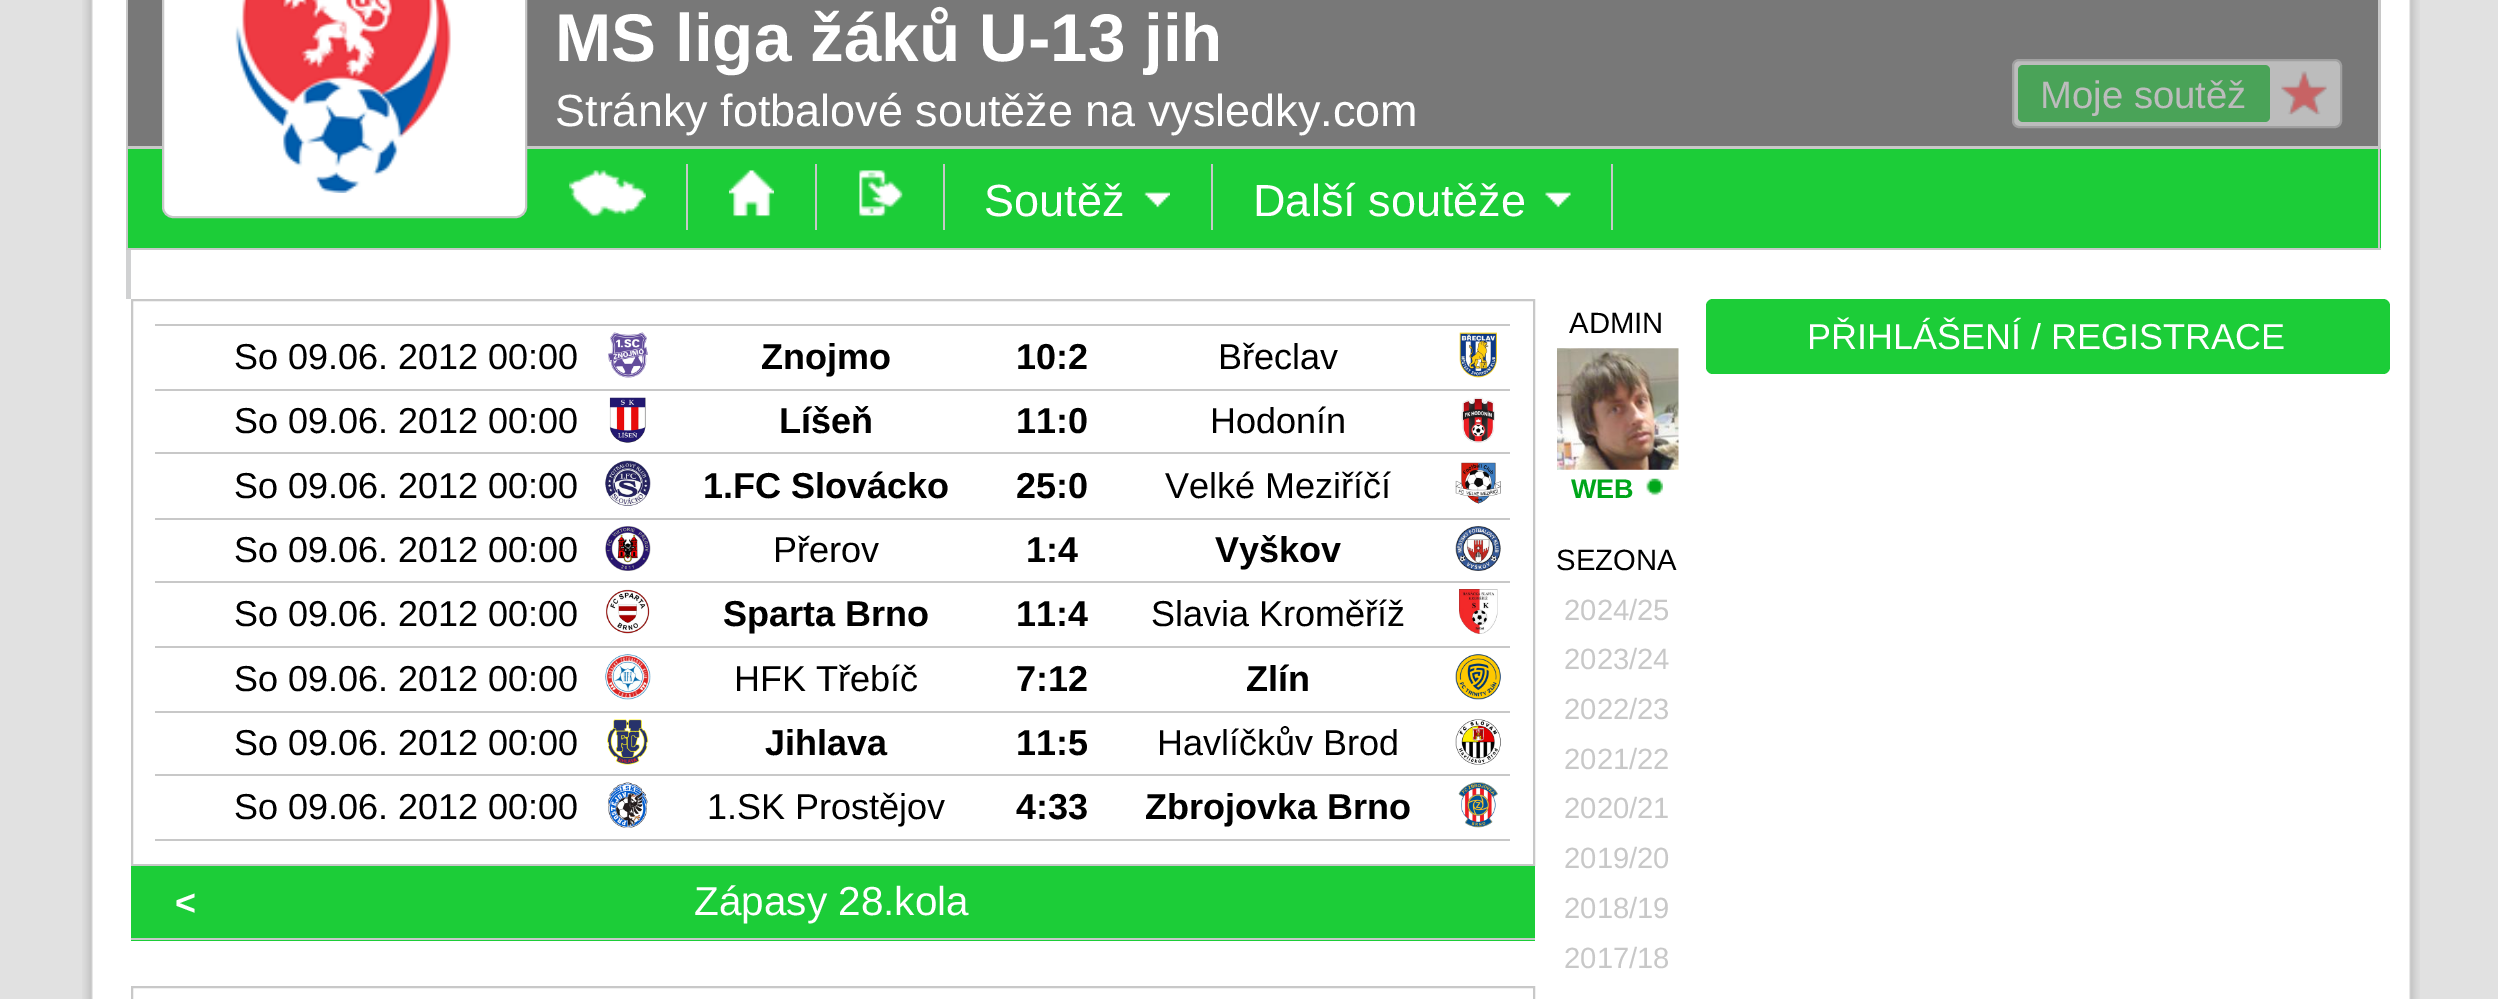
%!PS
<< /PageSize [2498 999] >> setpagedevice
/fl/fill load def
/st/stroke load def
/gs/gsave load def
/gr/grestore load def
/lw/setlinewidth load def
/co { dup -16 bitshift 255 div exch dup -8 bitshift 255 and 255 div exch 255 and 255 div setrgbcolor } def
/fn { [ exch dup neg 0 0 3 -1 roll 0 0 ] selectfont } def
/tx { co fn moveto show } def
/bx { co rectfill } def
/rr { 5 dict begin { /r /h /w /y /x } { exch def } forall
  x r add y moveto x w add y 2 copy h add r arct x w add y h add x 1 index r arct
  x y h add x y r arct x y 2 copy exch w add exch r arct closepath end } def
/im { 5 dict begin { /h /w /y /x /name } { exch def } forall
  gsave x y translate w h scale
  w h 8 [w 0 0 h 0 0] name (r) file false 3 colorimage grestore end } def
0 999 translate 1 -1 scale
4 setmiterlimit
0 0 2498 999 16#E1E1E1 bx
(media/1.raw) 82 0 2338 999 im
126 0 2255 149 16#C8C8C8 bx
128 0 2250 146 16#787878 bx
128 149 2253 99 16#1CCD38 bx
16#FFFFFF co
163 -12 363 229 10 rr gs fl gr
16#C8C8C8 co
2 lw
st
(media/2.raw) 235 0 216 193 im
16#BCBCBC co
2013 60 328 67 6 rr gs fl gr
16#A0A0A0 co
st
16#4AA358 co
2018 65 252 57 5 rr fl
(media/3.raw) 2281 71 46 44 im
126 149 2 99 16#C8C8C8 bx
686 164 2 66 16#C8C8C8 bx
(media/4.raw) 569 170 77 47 im
815 164 2 66 16#C8C8C8 bx
(media/5.raw) 729 170 45 47 im
943 164 2 66 16#C8C8C8 bx
(media/6.raw) 859 170 44 47 im
1211 164 2 66 16#C8C8C8 bx
(media/7.raw) 1144 192 26 16 im
1611 164 2 66 16#C8C8C8 bx
(media/8.raw) 1545 192 26 16 im
2378 149 2 99 16#C8C8C8 bx
126 249 5 50 16#D0D1D2 bx
126 248 2255 2 16#C8C8C8 bx
132 300 1402 565 rectstroke
155 324 1355 2 16#C8C8C8 bx
(media/9.raw) 608 332 40 46 im
(media/10.raw) 1459 332 38 46 im
155 389 1355 2 16#C8C8C8 bx
(media/11.raw) 609 397 37 46 im
(media/12.raw) 1461 397 34 46 im
155 452 1355 2 16#C8C8C8 bx
(media/13.raw) 605 460 46 46 im
(media/14.raw) 1455 462 46 42 im
155 518 1355 2 16#C8C8C8 bx
(media/15.raw) 605 526 46 45 im
(media/16.raw) 1455 526 46 45 im
155 581 1355 2 16#C8C8C8 bx
(media/17.raw) 606 589 44 45 im
(media/18.raw) 1459 589 39 45 im
155 646 1355 2 16#C8C8C8 bx
(media/19.raw) 605 654 46 46 im
(media/20.raw) 1455 654 46 46 im
155 711 1355 2 16#C8C8C8 bx
(media/21.raw) 607 719 42 46 im
(media/22.raw) 1455 719 46 46 im
155 774 1355 2 16#C8C8C8 bx
(media/23.raw) 608 782 40 46 im
(media/24.raw) 1458 782 40 46 im
155 839 1355 2 16#C8C8C8 bx
131 866 1404 75 16#1CCD38 bx
131 938 1404 2 16#C8C8C8 bx
132 987 1402 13 rectstroke
(media/25.raw) 1557 348 122 122 im
(media/26.raw) 1646 478 17 18 im
16#1CCD38 co
1706 299 684 75 7 rr fl
(MS liga žáků U-13 jih) 555 61 /LiberationSans-Bold 67.5 16#FFFFFF tx
(Stránky fotbalové soutěže na vysledky.com) 555 126 /LiberationSans-Regular 45 16#FFFFFF tx
(Moje soutěž) 2040 108 /LiberationSans-Regular 38.25 16#BCBCBC tx
(Soutěž) 984 216 /LiberationSans-Regular 45 16#FFFFFF tx
(Další soutěže) 1253 216 /LiberationSans-Regular 45 16#FFFFFF tx
(So 09.06. 2012 00:00) 234 369 /LiberationSans-Regular 36 16#000000 tx
(Znojmo) 761 369 /LiberationSans-Bold 36 16#000000 tx
(10:2) 1016 369 /LiberationSans-Bold 36 16#000000 tx
(Břeclav) 1218 369 /LiberationSans-Regular 36 16#000000 tx
(So 09.06. 2012 00:00) 234 433 /LiberationSans-Regular 36 16#000000 tx
(Líšeň) 779 433 /LiberationSans-Bold 36 16#000000 tx
(11:0) 1016 433 /LiberationSans-Bold 36 16#000000 tx
(Hodonín) 1210 433 /LiberationSans-Regular 36 16#000000 tx
(So 09.06. 2012 00:00) 234 498 /LiberationSans-Regular 36 16#000000 tx
(1.FC Slovácko) 703 498 /LiberationSans-Bold 36 16#000000 tx
(25:0) 1016 498 /LiberationSans-Bold 36 16#000000 tx
(Velké Meziříčí) 1165 498 /LiberationSans-Regular 36 16#000000 tx
(So 09.06. 2012 00:00) 234 562 /LiberationSans-Regular 36 16#000000 tx
(Přerov) 773 562 /LiberationSans-Regular 36 16#000000 tx
(1:4) 1026 562 /LiberationSans-Bold 36 16#000000 tx
(Vyškov) 1215 562 /LiberationSans-Bold 36 16#000000 tx
(So 09.06. 2012 00:00) 234 626 /LiberationSans-Regular 36 16#000000 tx
(Sparta Brno) 723 626 /LiberationSans-Bold 36 16#000000 tx
(11:4) 1016 626 /LiberationSans-Bold 36 16#000000 tx
(Slavia Kroměříž) 1151 626 /LiberationSans-Regular 36 16#000000 tx
(So 09.06. 2012 00:00) 234 691 /LiberationSans-Regular 36 16#000000 tx
(HFK Třebíč) 734 691 /LiberationSans-Regular 36 16#000000 tx
(7:12) 1016 691 /LiberationSans-Bold 36 16#000000 tx
(Zlín) 1246 691 /LiberationSans-Bold 36 16#000000 tx
(So 09.06. 2012 00:00) 234 755 /LiberationSans-Regular 36 16#000000 tx
(Jihlava) 765 755 /LiberationSans-Bold 36 16#000000 tx
(11:5) 1016 755 /LiberationSans-Bold 36 16#000000 tx
(Havlíčkův Brod) 1157 755 /LiberationSans-Regular 36 16#000000 tx
(So 09.06. 2012 00:00) 234 819 /LiberationSans-Regular 36 16#000000 tx
(1.SK Prostějov) 707 819 /LiberationSans-Regular 36 16#000000 tx
(4:33) 1016 819 /LiberationSans-Bold 36 16#000000 tx
(Zbrojovka Brno) 1145 819 /LiberationSans-Bold 36 16#000000 tx
(<) 175 915 /LiberationSans-Bold 36 16#FFFFFF tx
(Zápasy 28.kola) 694 915 /LiberationSans-Regular 40.5 16#FFFFFF tx
(ADMIN) 1569 333 /LiberationSans-Regular 29.25 16#000000 tx
(WEB) 1571 498 /LiberationSans-Bold 27 16#00A61A tx
(SEZONA) 1556 570 /LiberationSans-Regular 29.25 16#000000 tx
(2024/25) 1564 620 /LiberationSans-Regular 29.25 16#C8C8C8 tx
(2023/24) 1564 669 /LiberationSans-Regular 29.25 16#C8C8C8 tx
(2022/23) 1564 719 /LiberationSans-Regular 29.25 16#C8C8C8 tx
(2021/22) 1564 769 /LiberationSans-Regular 29.25 16#C8C8C8 tx
(2020/21) 1564 818 /LiberationSans-Regular 29.25 16#C8C8C8 tx
(2019/20) 1564 868 /LiberationSans-Regular 29.25 16#C8C8C8 tx
(2018/19) 1564 918 /LiberationSans-Regular 29.25 16#C8C8C8 tx
(2017/18) 1564 968 /LiberationSans-Regular 29.25 16#C8C8C8 tx
(PŘIHLÁŠENÍ / REGISTRACE) 1807 349 /LiberationSans-Regular 36 16#FFFFFF tx
showpage
